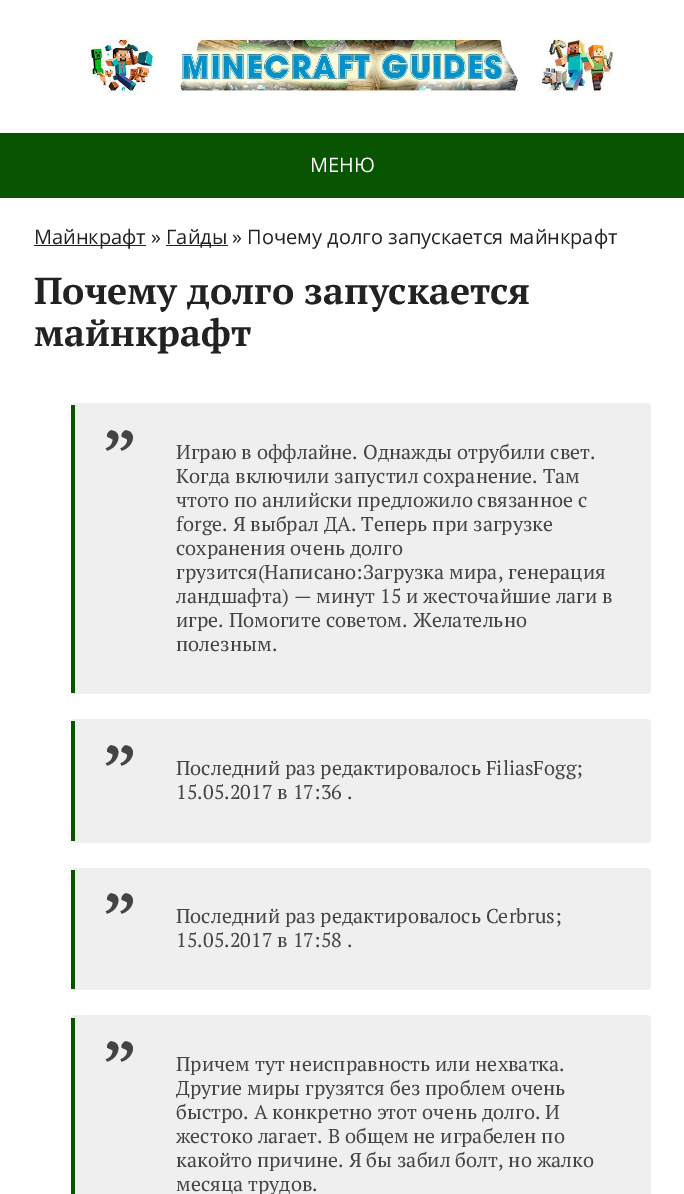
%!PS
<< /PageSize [684 1194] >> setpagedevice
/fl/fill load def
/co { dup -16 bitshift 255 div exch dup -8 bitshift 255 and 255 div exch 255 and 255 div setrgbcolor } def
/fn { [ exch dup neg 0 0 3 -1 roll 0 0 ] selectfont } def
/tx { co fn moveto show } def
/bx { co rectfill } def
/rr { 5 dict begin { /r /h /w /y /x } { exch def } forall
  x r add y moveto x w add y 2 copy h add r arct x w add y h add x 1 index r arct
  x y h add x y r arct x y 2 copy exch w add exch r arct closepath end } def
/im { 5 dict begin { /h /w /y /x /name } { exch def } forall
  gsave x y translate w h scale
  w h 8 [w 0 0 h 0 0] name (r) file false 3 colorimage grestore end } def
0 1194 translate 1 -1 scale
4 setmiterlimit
0 0 684 1194 16#FFFFFF bx
(media/1.raw) 88 37 527 56 im
0 133 684 65 16#085400 bx
34 245 112 1 16#222222 bx
166 245 62 1 16#222222 bx
16#EFEFEF co
71 403 580 291 4 rr fl
71 405 4 288 16#085400 bx
16#EFEFEF co
71 719 580 124 4 rr fl
71 721 4 120 16#085400 bx
16#EFEFEF co
71 868 580 122 4 rr fl
71 870 4 119 16#085400 bx
16#EFEFEF co
71 1015 580 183 4 rr fl
71 1018 4 176 16#085400 bx
(МЕНЮ) 310 172 /OpenSans-Regular 20 16#FFFFFF tx
(Майнкрафт ») 34 244 /OpenSans-Regular 20 16#222222 tx
(Гайды » Почему долго запускается майнкрафт) 166 244 /OpenSans-Regular 20 16#222222 tx
(Почему долго запускается) 34 304 /PTSerif-Bold 37.5 16#222222 tx
(майнкрафт) 34 346 /PTSerif-Bold 37.5 16#222222 tx
(”) 101 486 /PTSerif-Regular 80 16#444444 tx
(Играю в оффлайне. Однажды отрубили свет.) 176 459 /PTSerif-Regular 20 16#444444 tx
(Когда включили запустил сохранение. Там) 176 483 /PTSerif-Regular 20 16#444444 tx
(чтото по анлийски предложило связанное с) 176 507 /PTSerif-Regular 20 16#444444 tx
(forge. Я выбрал ДА. Теперь при загрузке) 176 531 /PTSerif-Regular 20 16#444444 tx
(сохранения очень долго) 176 555 /PTSerif-Regular 20 16#444444 tx
(грузится\(Написано:Загрузка мира, генерация) 176 579 /PTSerif-Regular 20 16#444444 tx
(ландшафта\) — минут 15 и жесточайшие лаги в) 176 603 /PTSerif-Regular 20 16#444444 tx
(игре. Помогите советом. Желательно) 176 627 /PTSerif-Regular 20 16#444444 tx
(полезным.) 176 651 /PTSerif-Regular 20 16#444444 tx
(”) 101 801 /PTSerif-Regular 80 16#444444 tx
(Последний раз редактировалось FiliasFogg;) 176 775 /PTSerif-Regular 20 16#444444 tx
(15.05.2017 в 17:36 .) 176 799 /PTSerif-Regular 20 16#444444 tx
(”) 101 949 /PTSerif-Regular 80 16#444444 tx
(Последний раз редактировалось Cerbrus;) 176 923 /PTSerif-Regular 20 16#444444 tx
(15.05.2017 в 17:58 .) 176 947 /PTSerif-Regular 20 16#444444 tx
(”) 101 1097 /PTSerif-Regular 80 16#444444 tx
(Причем тут неисправность или нехватка.) 176 1071 /PTSerif-Regular 20 16#444444 tx
(Другие миры грузятся без проблем очень) 176 1095 /PTSerif-Regular 20 16#444444 tx
(быстро. А конкретно этот очень долго. И) 176 1119 /PTSerif-Regular 20 16#444444 tx
(жестоко лагает. В общем не играбелен по) 176 1143 /PTSerif-Regular 20 16#444444 tx
(какойто причине. Я бы забил болт, но жалко) 176 1167 /PTSerif-Regular 20 16#444444 tx
(месяца трудов.) 176 1191 /PTSerif-Regular 20 16#444444 tx
showpage
